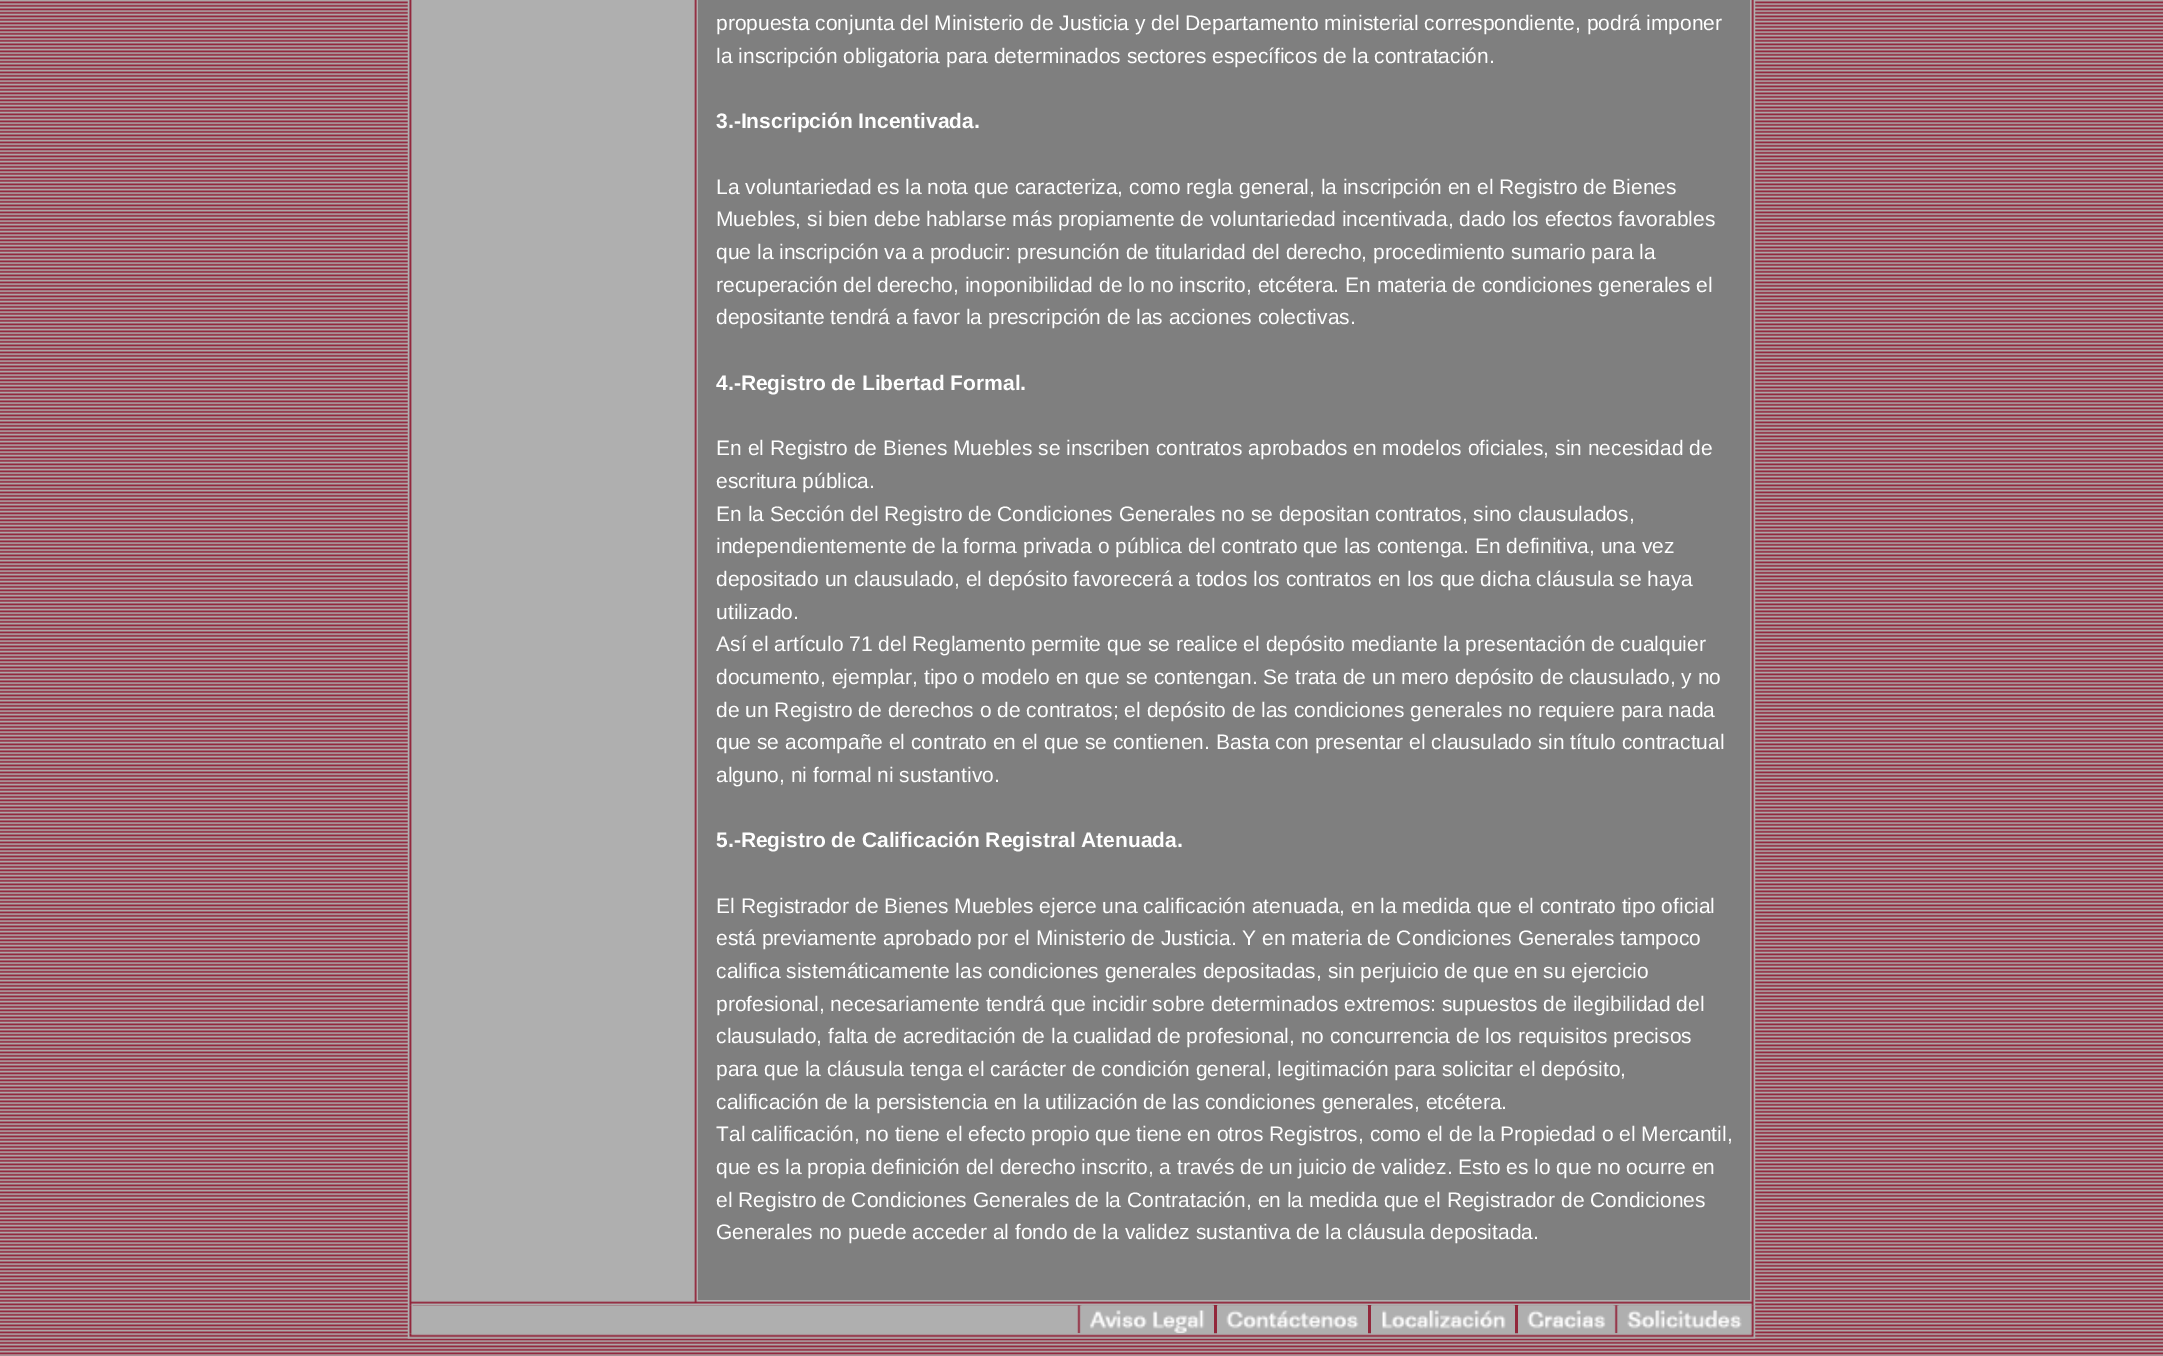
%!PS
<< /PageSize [2163 1356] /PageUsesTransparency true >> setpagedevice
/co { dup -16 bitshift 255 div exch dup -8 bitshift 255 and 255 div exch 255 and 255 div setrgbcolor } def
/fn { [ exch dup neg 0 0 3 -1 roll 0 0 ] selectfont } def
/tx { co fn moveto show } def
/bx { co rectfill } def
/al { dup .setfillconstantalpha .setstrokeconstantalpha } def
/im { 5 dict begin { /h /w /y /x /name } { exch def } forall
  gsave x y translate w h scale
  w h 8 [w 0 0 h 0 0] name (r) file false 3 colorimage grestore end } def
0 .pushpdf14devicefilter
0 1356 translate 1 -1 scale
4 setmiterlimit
0 0 2163 1356 16#FFFFFF bx
(media/1.raw) 0 0 2163 1356 im
(media/2.raw) 407 0 6 1300 im
413 0 280 1300 16#AFAFAF bx
(media/3.raw) 693 0 5 1300 im
698 0 1052 1300 16#7F7F7F bx
(media/4.raw) 1750 0 6 1300 im
(media/6.raw) 407 1305 6 29 im
(media/14.raw) 1750 1305 6 29 im
(media/5.raw) 407 1300 1349 6 im
413 1306 1337 28 16#AFAFAF bx
(media/7.raw) 1077 1305 4 29 im
(media/8.raw) 1081 1305 132 29 im
0.94 al
1214 1305 3 29 16#901E34 bx
1 al
(media/9.raw) 1218 1305 149 24 im
0.94 al
1368 1305 3 29 16#901E34 bx
1 al
(media/10.raw) 1372 1305 142 24 im
0.94 al
1515 1305 3 29 16#901E34 bx
1 al
(media/11.raw) 1519 1305 95 24 im
(media/12.raw) 1614 1305 4 29 im
(media/13.raw) 1618 1305 132 24 im
(media/15.raw) 407 1333 1349 6 im
(propuesta conjunta del Ministerio de Justicia y del Departamento ministerial correspondiente, podrá imponer) 716 30 /LiberationSans-Regular 21 16#FFFFFF tx
(la inscripción obligatoria para determinados sectores específicos de la contratación.) 716 63 /LiberationSans-Regular 21 16#FFFFFF tx
(3.-Inscripción Incentivada.) 716 128 /LiberationSans-Bold 21 16#FFFFFF tx
(La voluntariedad es la nota que caracteriza, como regla general, la inscripción en el Registro de Bienes) 716 194 /LiberationSans-Regular 21 16#FFFFFF tx
(Muebles, si bien debe hablarse más propiamente de voluntariedad incentivada, dado los efectos favorables) 716 226 /LiberationSans-Regular 21 16#FFFFFF tx
(que la inscripción va a producir: presunción de titularidad del derecho, procedimiento sumario para la) 716 259 /LiberationSans-Regular 21 16#FFFFFF tx
(recuperación del derecho, inoponibilidad de lo no inscrito, etcétera. En materia de condiciones generales el) 716 292 /LiberationSans-Regular 21 16#FFFFFF tx
(depositante tendrá a favor la prescripción de las acciones colectivas.) 716 324 /LiberationSans-Regular 21 16#FFFFFF tx
(4.-Registro de Libertad Formal.) 716 390 /LiberationSans-Bold 21 16#FFFFFF tx
(En el Registro de Bienes Muebles se inscriben contratos aprobados en modelos oficiales, sin necesidad de) 716 455 /LiberationSans-Regular 21 16#FFFFFF tx
(escritura pública.) 716 488 /LiberationSans-Regular 21 16#FFFFFF tx
(En la Sección del Registro de Condiciones Generales no se depositan contratos, sino clausulados,) 716 521 /LiberationSans-Regular 21 16#FFFFFF tx
(independientemente de la forma privada o pública del contrato que las contenga. En definitiva, una vez) 716 553 /LiberationSans-Regular 21 16#FFFFFF tx
(depositado un clausulado, el depósito favorecerá a todos los contratos en los que dicha cláusula se haya) 716 586 /LiberationSans-Regular 21 16#FFFFFF tx
(utilizado.) 716 619 /LiberationSans-Regular 21 16#FFFFFF tx
(Así el artículo 71 del Reglamento permite que se realice el depósito mediante la presentación de cualquier) 716 651 /LiberationSans-Regular 21 16#FFFFFF tx
(documento, ejemplar, tipo o modelo en que se contengan. Se trata de un mero depósito de clausulado, y no) 716 684 /LiberationSans-Regular 21 16#FFFFFF tx
(de un Registro de derechos o de contratos; el depósito de las condiciones generales no requiere para nada) 716 717 /LiberationSans-Regular 21 16#FFFFFF tx
(que se acompañe el contrato en el que se contienen. Basta con presentar el clausulado sin título contractual) 716 749 /LiberationSans-Regular 21 16#FFFFFF tx
(alguno, ni formal ni sustantivo.) 716 782 /LiberationSans-Regular 21 16#FFFFFF tx
(5.-Registro de Calificación Registral Atenuada.) 716 847 /LiberationSans-Bold 21 16#FFFFFF tx
(El Registrador de Bienes Muebles ejerce una calificación atenuada, en la medida que el contrato tipo oficial) 716 913 /LiberationSans-Regular 21 16#FFFFFF tx
(está previamente aprobado por el Ministerio de Justicia. Y en materia de Condiciones Generales tampoco) 716 945 /LiberationSans-Regular 21 16#FFFFFF tx
(califica sistemáticamente las condiciones generales depositadas, sin perjuicio de que en su ejercicio) 716 978 /LiberationSans-Regular 21 16#FFFFFF tx
(profesional, necesariamente tendrá que incidir sobre determinados extremos: supuestos de ilegibilidad del) 716 1011 /LiberationSans-Regular 21 16#FFFFFF tx
(clausulado, falta de acreditación de la cualidad de profesional, no concurrencia de los requisitos precisos) 716 1043 /LiberationSans-Regular 21 16#FFFFFF tx
(para que la cláusula tenga el carácter de condición general, legitimación para solicitar el depósito,) 716 1076 /LiberationSans-Regular 21 16#FFFFFF tx
(calificación de la persistencia en la utilización de las condiciones generales, etcétera.) 716 1109 /LiberationSans-Regular 21 16#FFFFFF tx
(Tal calificación, no tiene el efecto propio que tiene en otros Registros, como el de la Propiedad o el Mercantil,) 716 1141 /LiberationSans-Regular 21 16#FFFFFF tx
(que es la propia definición del derecho inscrito, a través de un juicio de validez. Esto es lo que no ocurre en) 716 1174 /LiberationSans-Regular 21 16#FFFFFF tx
(el Registro de Condiciones Generales de la Contratación, en la medida que el Registrador de Condiciones) 716 1207 /LiberationSans-Regular 21 16#FFFFFF tx
(Generales no puede acceder al fondo de la validez sustantiva de la cláusula depositada.) 716 1239 /LiberationSans-Regular 21 16#FFFFFF tx
.poppdf14devicefilter showpage
